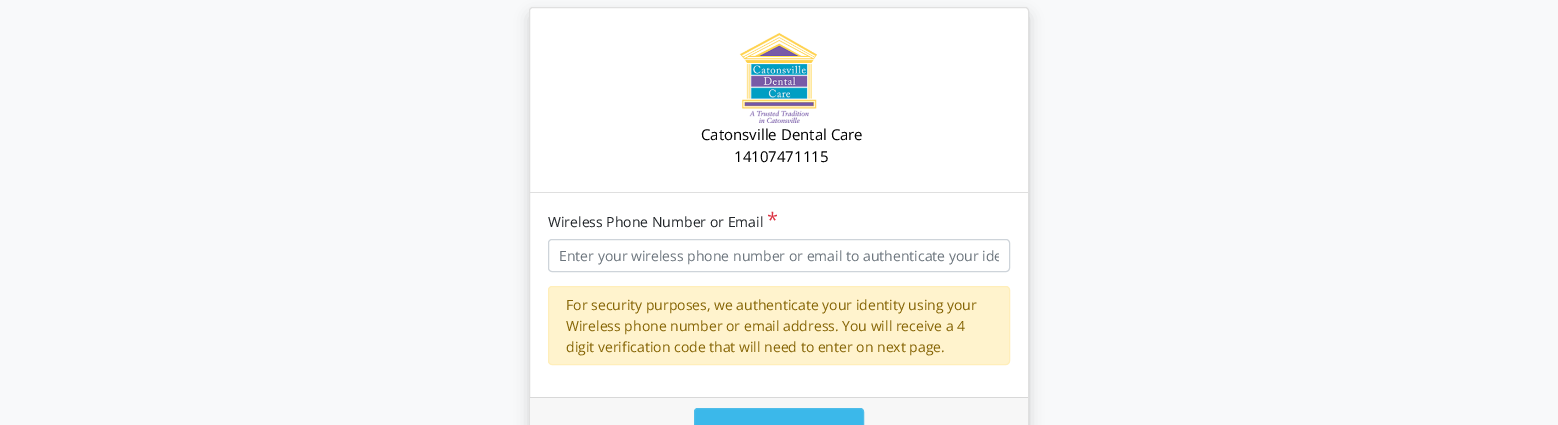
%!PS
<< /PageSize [1558 425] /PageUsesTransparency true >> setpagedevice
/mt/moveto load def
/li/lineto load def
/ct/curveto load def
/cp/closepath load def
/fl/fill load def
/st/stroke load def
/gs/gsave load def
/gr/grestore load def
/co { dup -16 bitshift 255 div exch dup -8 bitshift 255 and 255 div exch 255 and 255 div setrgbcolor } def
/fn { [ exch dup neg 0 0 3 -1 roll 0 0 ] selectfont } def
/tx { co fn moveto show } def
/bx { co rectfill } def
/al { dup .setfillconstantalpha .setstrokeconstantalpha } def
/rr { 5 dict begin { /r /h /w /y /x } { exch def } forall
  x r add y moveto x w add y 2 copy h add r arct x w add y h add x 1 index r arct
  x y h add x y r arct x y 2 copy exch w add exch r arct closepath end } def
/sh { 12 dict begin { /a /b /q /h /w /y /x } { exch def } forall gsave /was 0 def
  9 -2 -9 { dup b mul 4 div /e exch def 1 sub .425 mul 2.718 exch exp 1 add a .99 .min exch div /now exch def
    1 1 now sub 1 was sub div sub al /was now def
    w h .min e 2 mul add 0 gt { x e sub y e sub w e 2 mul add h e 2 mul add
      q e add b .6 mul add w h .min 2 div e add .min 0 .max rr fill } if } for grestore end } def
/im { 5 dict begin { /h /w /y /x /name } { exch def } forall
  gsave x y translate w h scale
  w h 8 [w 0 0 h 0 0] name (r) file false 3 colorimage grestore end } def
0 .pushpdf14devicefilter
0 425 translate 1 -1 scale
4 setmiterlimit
0 0 1558 425 16#F8F9FA bx
16#000000 co
529 14 500 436 4 7 .15 sh
16#FFFFFF co
533 7 mt 1025 7 li 1027 7 1029 9 1029 11 ct 1029 425 li 529 425 li 529 11 li 529 9 531 7 533 7 ct cp fl
0.12 al
16#000000 co
529.5 7.5 499 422 3.5 rr st
1 al
530 192 498 1 16#DFDFDF bx
(media/1.raw) 739 32 78 91 im
16#CED4DA co
548.5 239.5 461 32 3.5 rr st
16#FFF3CD co
548.5 286.5 461 78 3.5 rr gs fl gr
16#FFEEBA co
st
530 398 498 27 16#F7F7F7 bx
530 397 498 1 16#D8D8D8 bx
16#3BB8EA co
698 408 mt 860 408 li 862 408 864 410 864 412 ct 864 425 li 694 425 li 694 412 li 694 410 696 408 698 408 ct cp fl
16#4FBDE9 co
694.5 408.5 169 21 3.5 rr st
(Catonsville Dental Care) 701 140 /OpenSans-Regular 15 16#000000 tx
(14107471115) 734 162 /OpenSans-Regular 15 16#000000 tx
(Wireless Phone Number or Email) 548 227 /OpenSans-Regular 14 16#212529 tx
(*) 767 227 /OpenSans-Regular 20 16#DC3545 tx
gs
559 246 440 19 rectclip
(Enter your wireless phone number or email to authenticate your ide) 559 261 /OpenSans-Regular 14 16#6C757D tx
gr
(For security purposes, we authenticate your identity using your) 566 310 /OpenSans-Regular 14 16#856404 tx
(Wireless phone number or email address. You will receive a 4) 566 331 /OpenSans-Regular 14 16#856404 tx
(digit verification code that will need to enter on next page.) 566 352 /OpenSans-Regular 14 16#856404 tx
.poppdf14devicefilter showpage
